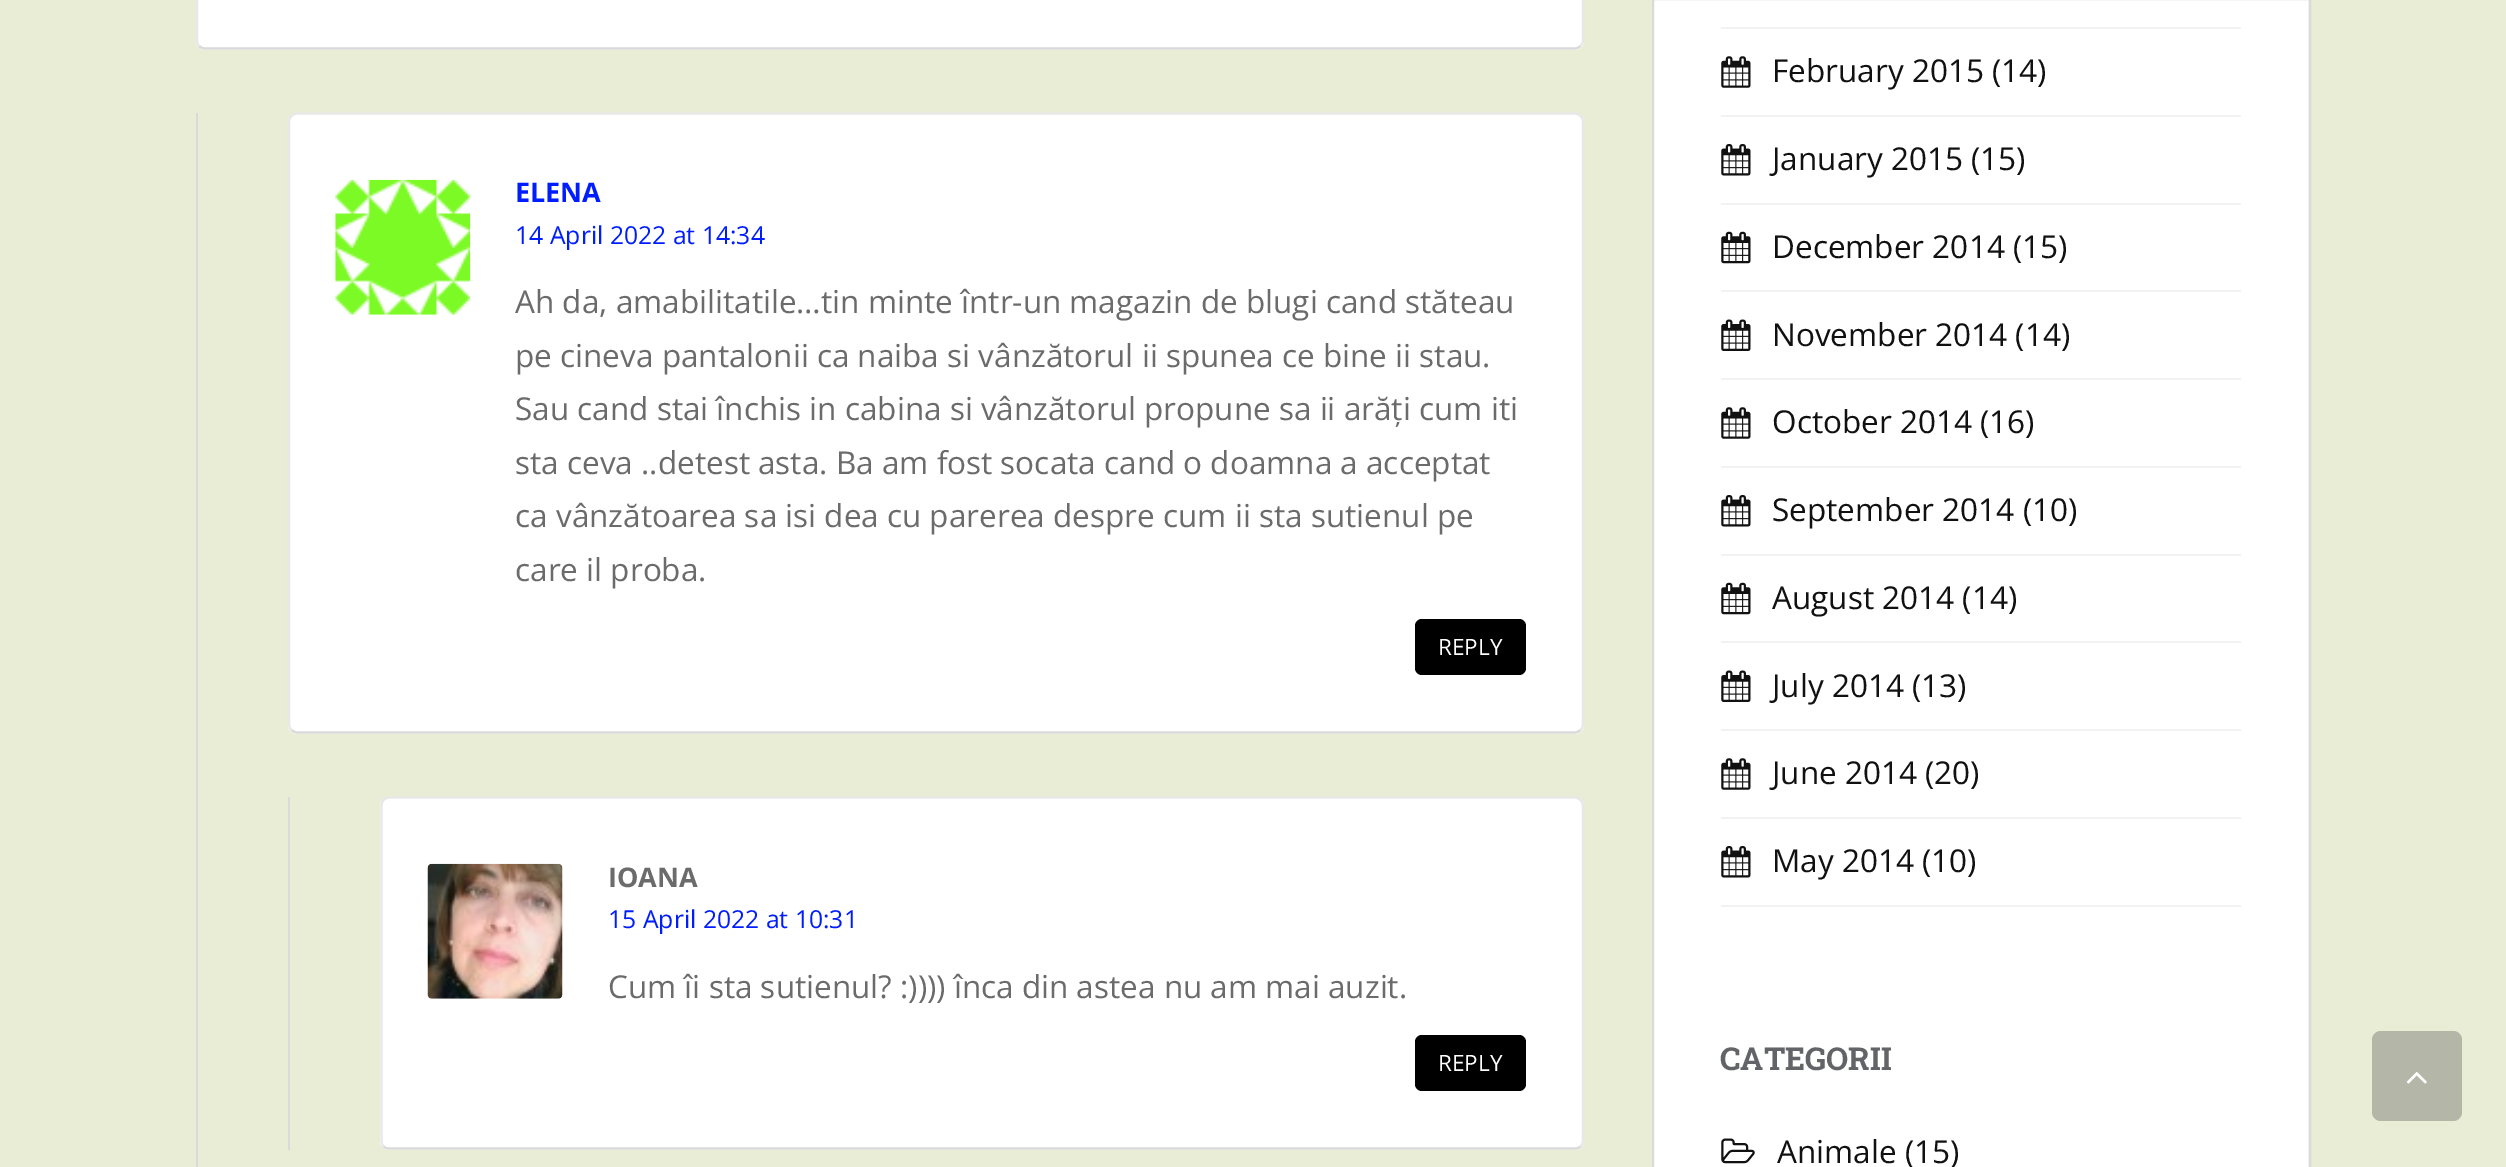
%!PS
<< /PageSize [2506 1167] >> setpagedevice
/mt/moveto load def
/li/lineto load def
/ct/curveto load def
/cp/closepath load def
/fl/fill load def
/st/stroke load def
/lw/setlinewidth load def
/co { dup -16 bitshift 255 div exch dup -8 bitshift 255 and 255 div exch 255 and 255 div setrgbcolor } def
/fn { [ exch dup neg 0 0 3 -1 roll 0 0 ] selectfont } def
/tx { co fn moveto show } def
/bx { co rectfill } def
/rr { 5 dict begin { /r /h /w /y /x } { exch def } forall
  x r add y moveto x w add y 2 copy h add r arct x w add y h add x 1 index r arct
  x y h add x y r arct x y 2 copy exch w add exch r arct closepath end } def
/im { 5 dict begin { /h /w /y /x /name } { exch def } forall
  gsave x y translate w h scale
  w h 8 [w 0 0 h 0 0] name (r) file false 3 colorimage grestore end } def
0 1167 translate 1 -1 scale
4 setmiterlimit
0 0 2506 1167 16#E9EDD5 bx
16#FFFFFF co
196 -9 1388 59 9 rr fl
16#DADADA co
2.2 lw
1580.5 46 mt 1579 47.5 1577 48.5 1575 48.5 ct 205 48.5 li 202.5 48.5 200.5 47.5 199 46 ct st
16#E8E8E8 co
199 46 mt 197.5 44.5 197 42.5 197 40.5 ct 197 -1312 li 197 -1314 197.5 -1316 199 -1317.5 ct 200.5 -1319 202.5 -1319.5 205 -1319.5 ct 1575 -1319.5 li 1577 -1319.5 1579 -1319 1580.5 -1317.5 ct 1582 -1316 1583 -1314 1583 -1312 ct 1583 40.5 li 1583 42.5 1582 44.5 1580.5 46 ct st
196 113 2 1054 16#DADADA bx
16#FFFFFF co
288 113 1296 621 9 rr fl
16#DADADA co
1580.5 730 mt 1579 731.5 1577 732.5 1575 732.5 ct 297 732.5 li 295 732.5 293 731.5 291.5 730 ct st
16#E8E8E8 co
291.5 730 mt 290 728.5 289 726.5 289 724.5 ct 289 121.5 li 289 119.5 290 117.5 291.5 116 ct 293 114.5 295 113.5 297 113.5 ct 1575 113.5 li 1577 113.5 1579 114.5 1580.5 116 ct 1582 117.5 1583 119.5 1583 121.5 ct 1583 724.5 li 1583 726.5 1582 728.5 1580.5 730 ct st
(media/1.raw) 335 179 136 136 im
16#000000 co
1415 619 111 56 7 rr fl
288 797 2 353 16#DADADA bx
16#FFFFFF co
380 797 1204 353 9 rr fl
16#DADADA co
1580.5 1146.5 mt 1579 1148 1577 1148.5 1575 1148.5 ct 389 1148.5 li 387 1148.5 385 1148 383.5 1146.5 ct st
16#E8E8E8 co
383.5 1146.5 mt 382 1145 381.5 1143 381.5 1141 ct 381.5 805.5 li 381.5 803.5 382 801.5 383.5 800 ct 385 798.5 387 797.5 389 797.5 ct 1575 797.5 li 1577 797.5 1579 798.5 1580.5 800 ct 1582 801.5 1583 803.5 1583 805.5 ct 1583 1141 li 1583 1143 1582 1145 1580.5 1146.5 ct st
(media/2.raw) 427 863 136 136 im
16#000000 co
1415 1035 111 56 7 rr fl
1654 0 654 1167 16#FFFFFF bx
16#F2F2F2 co
2309 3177 mt 1654 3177 li 1654 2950 li 1654 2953 1657 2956 1660 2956 ct 2302 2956 li 2305 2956 2308 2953 2308 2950 ct 2308 -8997 li 2309 -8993 li cp fl
16#DADADA co
2 lw
1653 -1 657 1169 rectstroke
1721 27 520 2 16#F2F2F2 bx
1721 115 520 2 16#F2F2F2 bx
(media/3.raw) 1721 56 30 32 im
1721 203 520 2 16#F2F2F2 bx
(media/4.raw) 1721 144 30 32 im
1721 290 520 2 16#F2F2F2 bx
(media/5.raw) 1721 231 30 33 im
1721 378 520 2 16#F2F2F2 bx
(media/6.raw) 1721 319 30 32 im
1721 466 520 2 16#F2F2F2 bx
(media/3.raw) 1721 407 30 32 im
1721 554 520 2 16#F2F2F2 bx
(media/4.raw) 1721 495 30 32 im
1721 641 520 2 16#F2F2F2 bx
(media/5.raw) 1721 582 30 33 im
1721 729 520 2 16#F2F2F2 bx
(media/6.raw) 1721 670 30 32 im
1721 817 520 2 16#F2F2F2 bx
(media/3.raw) 1721 758 30 32 im
1721 905 520 2 16#F2F2F2 bx
(media/4.raw) 1721 846 30 32 im
(media/7.raw) 1721 1138 34 26 im
16#B4B6A8 co
2372 1031 90 90 9 rr fl
(media/8.raw) 2406 1072 21 12 im
(ELENA) 515 202 /OpenSans-Bold 27 16#001DFF tx
(14 April 2022 at 14:34) 515 244 /OpenSans-Regular 24.75 16#001DFF tx
(Ah da, amabilitatile…tin minte într-un magazin de blugi cand stăteau) 515 313 /OpenSans-Regular 31.5 16#6B6B6B tx
(pe cineva pantalonii ca naiba si vânzătorul ii spunea ce bine ii stau.) 515 367 /OpenSans-Regular 31.5 16#6B6B6B tx
(Sau cand stai închis in cabina si vânzătorul propune sa ii arăți cum iti) 515 420 /OpenSans-Regular 31.5 16#6B6B6B tx
(sta ceva ..detest asta. Ba am fost socata cand o doamna a acceptat) 515 474 /OpenSans-Regular 31.5 16#6B6B6B tx
(ca vânzătoarea sa isi dea cu parerea despre cum ii sta sutienul pe) 515 527 /OpenSans-Regular 31.5 16#6B6B6B tx
(care il proba.) 515 581 /OpenSans-Regular 31.5 16#6B6B6B tx
(REPLY) 1438 655 /OpenSans-Regular 22.5 16#FFFFFF tx
(IOANA) 608 887 /OpenSans-Bold 27 16#6B6B6B tx
(15 April 2022 at 10:31) 608 928 /OpenSans-Regular 24.75 16#001DFF tx
(Cum îi sta sutienul? :\)\)\)\) înca din astea nu am mai auzit.) 608 998 /OpenSans-Regular 31.5 16#6B6B6B tx
(REPLY) 1438 1071 /OpenSans-Regular 22.5 16#FFFFFF tx
(February 2015 \(14\)) 1772 82 /OpenSans-Regular 31.5 16#111111 tx
(January 2015 \(15\)) 1772 170 /OpenSans-Regular 31.5 16#111111 tx
(December 2014 \(15\)) 1772 258 /OpenSans-Regular 31.5 16#111111 tx
(November 2014 \(14\)) 1772 346 /OpenSans-Regular 31.5 16#111111 tx
(October 2014 \(16\)) 1772 433 /OpenSans-Regular 31.5 16#111111 tx
(September 2014 \(10\)) 1772 521 /OpenSans-Regular 31.5 16#111111 tx
(August 2014 \(14\)) 1772 609 /OpenSans-Regular 31.5 16#111111 tx
(July 2014 \(13\)) 1772 697 /OpenSans-Regular 31.5 16#111111 tx
(June 2014 \(20\)) 1772 784 /OpenSans-Regular 31.5 16#111111 tx
(May 2014 \(10\)) 1772 872 /OpenSans-Regular 31.5 16#111111 tx
(CATEGORII) 1720 1070 /RobotoSlab-Bold 31.5 16#636467 tx
(Animale \(15\)) 1777 1163 /OpenSans-Regular 31.5 16#111111 tx
showpage
